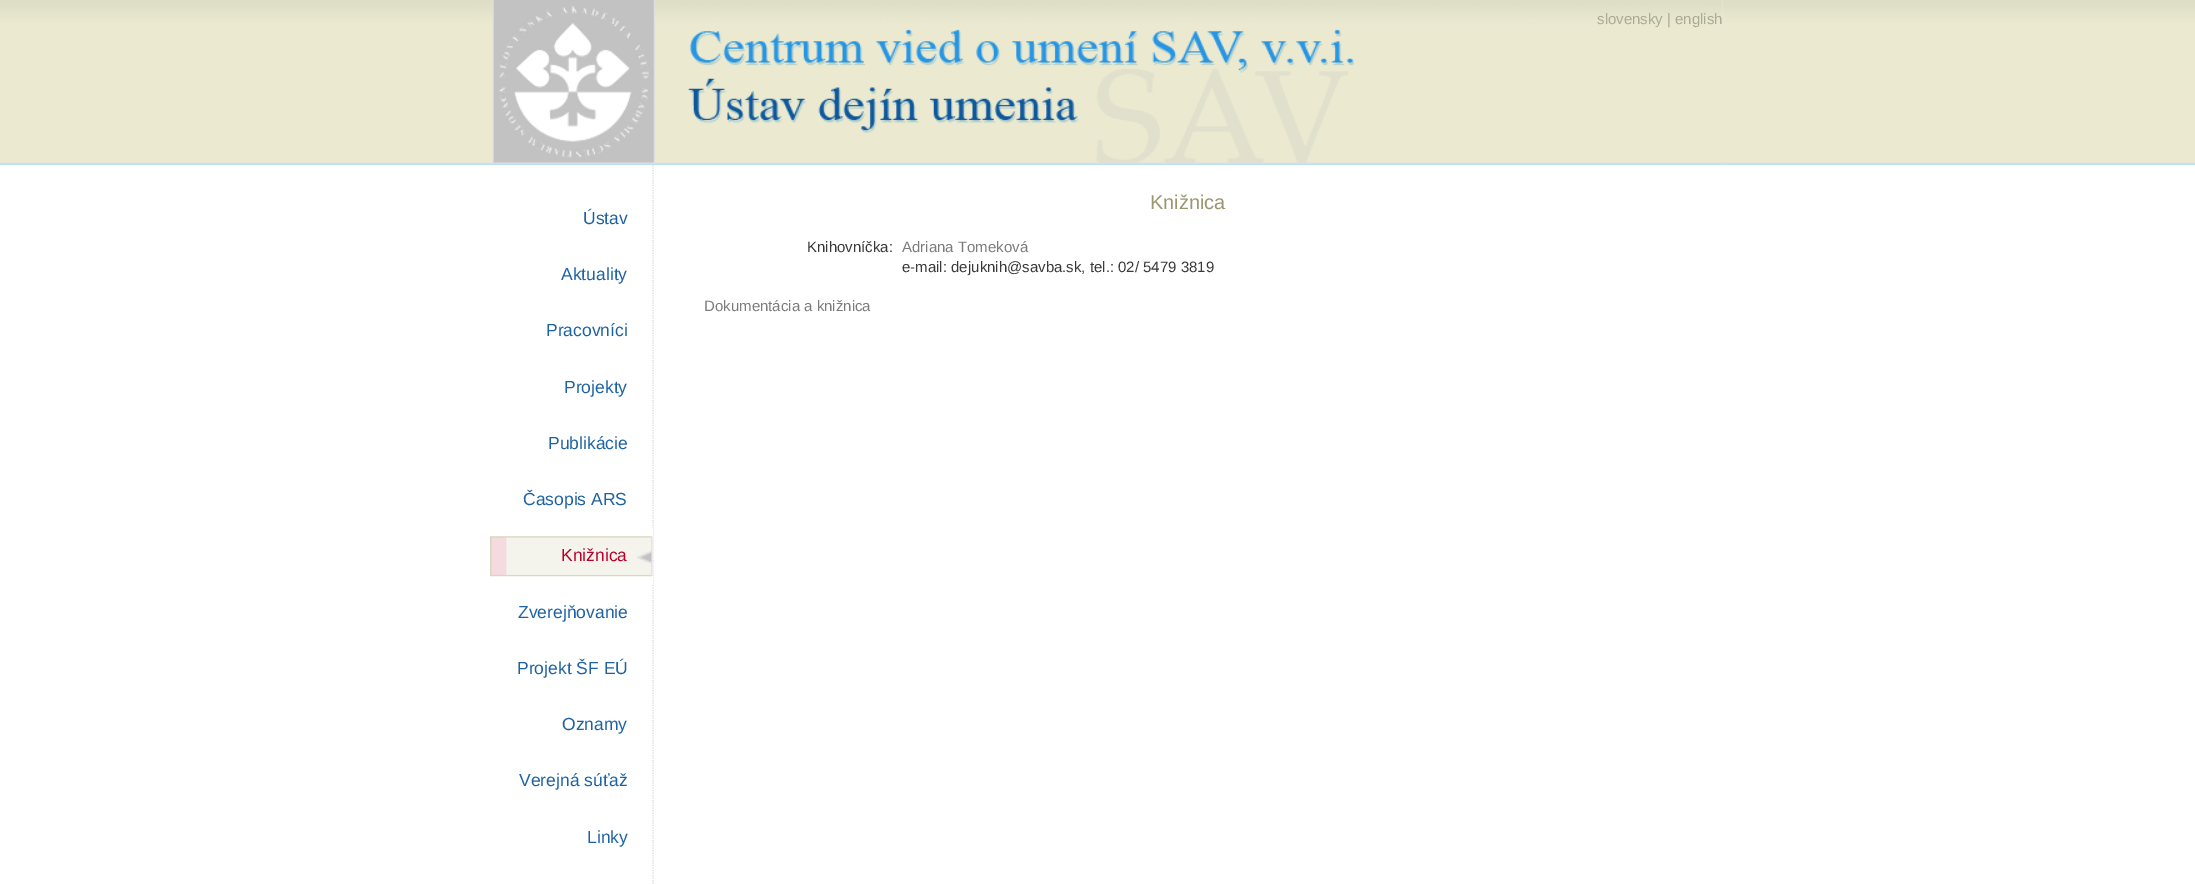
%!PS
<< /PageSize [2195 884] >> setpagedevice
/mt/moveto load def
/li/lineto load def
/st/stroke load def
/lw/setlinewidth load def
/co { dup -16 bitshift 255 div exch dup -8 bitshift 255 and 255 div exch 255 and 255 div setrgbcolor } def
/fn { [ exch dup neg 0 0 3 -1 roll 0 0 ] selectfont } def
/tx { co fn moveto show } def
/bx { co rectfill } def
/im { 5 dict begin { /h /w /y /x /name } { exch def } forall
  gsave x y translate w h scale
  w h 8 [w 0 0 h 0 0] name (r) file false 3 colorimage grestore end } def
0 884 translate 1 -1 scale
4 setmiterlimit
0 0 2195 884 16#FFFFFF bx
(media/1.raw) 0 0 2195 165 im
(media/2.raw) 473 0 182 165 im
1722 0 1 165 16#EBEAD1 bx
(media/3.raw) 655 0 1068 165 im
16#DEDEDE co
1.2 lw
[1.25 1.25] 0 setdash
653 165 mt 653 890 li st
652 528 1 56 16#FFFFFF bx
(media/4.raw) 490 536 163 41 im
(slovensky | english) 1597 24 /LiberationSans-Regular 15 16#ABAA94 tx
(Ústav) 583 224 /LiberationSans-Regular 17.5 16#1D62A3 tx
(Aktuality) 561 280 /LiberationSans-Regular 17.5 16#1D62A3 tx
(Pracovníci) 546 336 /LiberationSans-Regular 17.5 16#1D62A3 tx
(Projekty) 564 393 /LiberationSans-Regular 17.5 16#1D62A3 tx
(Publikácie) 548 449 /LiberationSans-Regular 17.5 16#1D62A3 tx
(Časopis ARS) 523 505 /LiberationSans-Regular 17.5 16#1D62A3 tx
(Knižnica) 561 561 /LiberationSans-Regular 17.5 16#B80028 tx
(Zverejňovanie) 518 618 /LiberationSans-Regular 17.5 16#1D62A3 tx
(Projekt ŠF EÚ) 517 674 /LiberationSans-Regular 17.5 16#1D62A3 tx
(Oznamy) 562 730 /LiberationSans-Regular 17.5 16#1D62A3 tx
(Verejná súťaž) 519 786 /LiberationSans-Regular 17.5 16#1D62A3 tx
(Linky) 587 843 /LiberationSans-Regular 17.5 16#1D62A3 tx
(Knižnica) 1150 209 /LiberationSans-Regular 20 16#999670 tx
(Knihovníčka:) 807 252 /LiberationSans-Regular 15 16#393939 tx
(Adriana Tomeková) 902 252 /LiberationSans-Regular 15 16#7C7C7C tx
(e-mail: dejuknih@savba.sk, tel.: 02/ 5479 3819) 902 272 /LiberationSans-Regular 15 16#393939 tx
(Dokumentácia a knižnica) 704 311 /LiberationSans-Regular 15 16#7C7C7C tx
showpage
